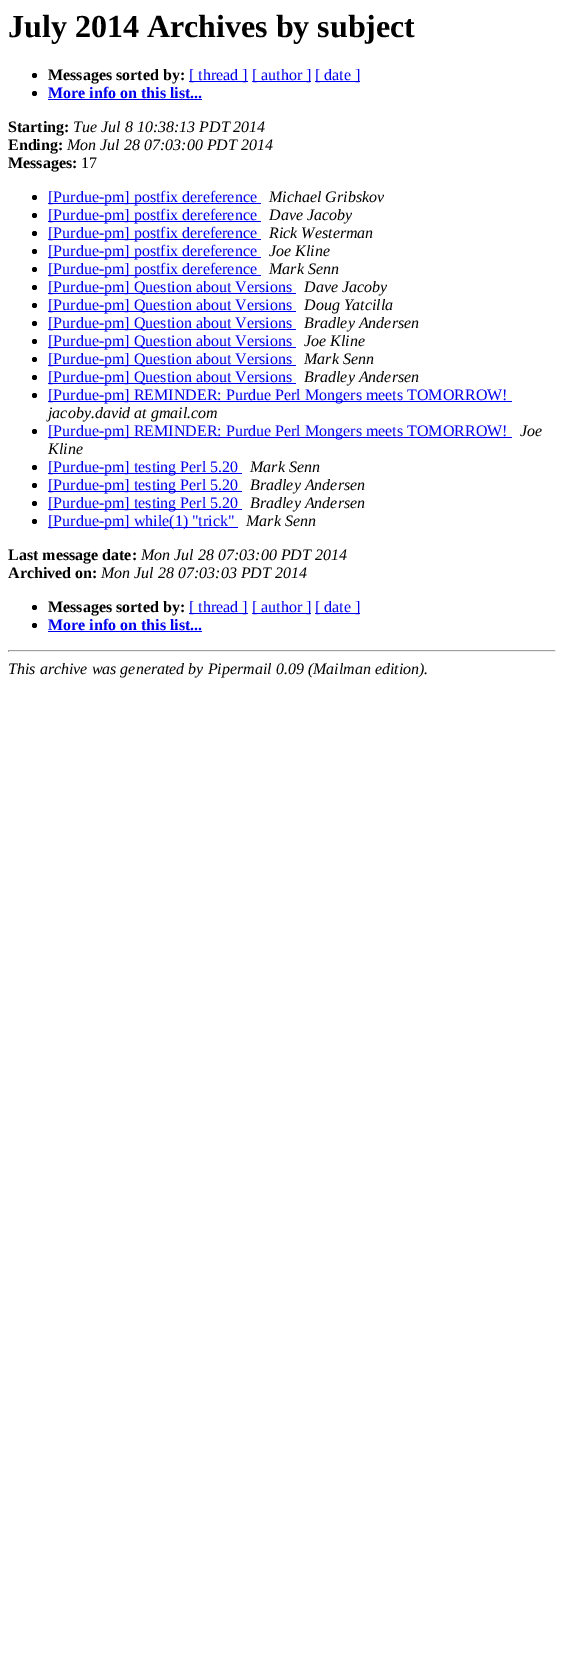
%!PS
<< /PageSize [564 1671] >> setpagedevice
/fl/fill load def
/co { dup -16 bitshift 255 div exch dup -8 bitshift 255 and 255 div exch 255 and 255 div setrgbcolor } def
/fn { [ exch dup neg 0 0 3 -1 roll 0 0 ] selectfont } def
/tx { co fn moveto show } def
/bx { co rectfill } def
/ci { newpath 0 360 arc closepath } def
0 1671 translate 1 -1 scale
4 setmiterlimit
0 0 564 1671 16#FFFFFF bx
16#000000 co
34.5 75.5 2.5 ci fl
189 81 59 1 16#0000EE bx
252 81 59 1 16#0000EE bx
315 81 45 1 16#0000EE bx
16#000000 co
34.5 93.5 2.5 ci fl
48 99 154 1 16#0000EE bx
16#000000 co
34.5 197.5 2.5 ci fl
48 203 213 1 16#0000EE bx
16#000000 co
34.5 215.5 2.5 ci fl
48 221 213 1 16#0000EE bx
16#000000 co
34.5 233.5 2.5 ci fl
48 239 213 1 16#0000EE bx
16#000000 co
34.5 251.5 2.5 ci fl
48 257 213 1 16#0000EE bx
16#000000 co
34.5 269.5 2.5 ci fl
48 275 213 1 16#0000EE bx
16#000000 co
34.5 287.5 2.5 ci fl
48 293 248 1 16#0000EE bx
16#000000 co
34.5 305.5 2.5 ci fl
48 311 248 1 16#0000EE bx
16#000000 co
34.5 323.5 2.5 ci fl
48 329 248 1 16#0000EE bx
16#000000 co
34.5 341.5 2.5 ci fl
48 347 248 1 16#0000EE bx
16#000000 co
34.5 359.5 2.5 ci fl
48 365 248 1 16#0000EE bx
16#000000 co
34.5 377.5 2.5 ci fl
48 383 248 1 16#0000EE bx
16#000000 co
34.5 395.5 2.5 ci fl
48 401 464 1 16#0000EE bx
16#000000 co
34.5 431.5 2.5 ci fl
48 437 464 1 16#0000EE bx
16#000000 co
34.5 467.5 2.5 ci fl
48 473 194 1 16#0000EE bx
16#000000 co
34.5 485.5 2.5 ci fl
48 491 194 1 16#0000EE bx
16#000000 co
34.5 503.5 2.5 ci fl
48 509 194 1 16#0000EE bx
16#000000 co
34.5 521.5 2.5 ci fl
48 527 190 1 16#0000EE bx
16#000000 co
34.5 607.5 2.5 ci fl
189 613 59 1 16#0000EE bx
252 613 59 1 16#0000EE bx
315 613 45 1 16#0000EE bx
16#000000 co
34.5 625.5 2.5 ci fl
48 631 154 1 16#0000EE bx
8 650 548 1 16#9F9F9F bx
555 650 1 2 16#EEEEEE bx
8 651 548 1 16#EEEEEE bx
8 650 1 2 16#9F9F9F bx
(July 2014 Archives by subject) 8 37 /LiberationSerif-Bold 32 16#000000 tx
(Messages sorted by:) 48 80 /LiberationSerif-Bold 16 16#000000 tx
([ thread ]) 189 80 /LiberationSerif-Regular 16 16#0000EE tx
([ author ]) 252 80 /LiberationSerif-Regular 16 16#0000EE tx
([ date ]) 315 80 /LiberationSerif-Regular 16 16#0000EE tx
(More info on this list...) 48 98 /LiberationSerif-Bold 16 16#0000EE tx
(Starting:) 8 132 /LiberationSerif-Bold 16 16#000000 tx
(Tue Jul 8 10:38:13 PDT 2014) 73 132 /LiberationSerif-Italic 16 16#000000 tx
(Ending:) 8 150 /LiberationSerif-Bold 16 16#000000 tx
(Mon Jul 28 07:03:00 PDT 2014) 67 150 /LiberationSerif-Italic 16 16#000000 tx
(Messages:) 8 168 /LiberationSerif-Bold 16 16#000000 tx
(17) 81 168 /LiberationSerif-Regular 16 16#000000 tx
([Purdue-pm] postfix dereference) 48 202 /LiberationSerif-Regular 16 16#0000EE tx
(Michael Gribskov) 269 202 /LiberationSerif-Italic 16 16#000000 tx
([Purdue-pm] postfix dereference) 48 220 /LiberationSerif-Regular 16 16#0000EE tx
(Dave Jacoby) 269 220 /LiberationSerif-Italic 16 16#000000 tx
([Purdue-pm] postfix dereference) 48 238 /LiberationSerif-Regular 16 16#0000EE tx
(Rick Westerman) 269 238 /LiberationSerif-Italic 16 16#000000 tx
([Purdue-pm] postfix dereference) 48 256 /LiberationSerif-Regular 16 16#0000EE tx
(Joe Kline) 269 256 /LiberationSerif-Italic 16 16#000000 tx
([Purdue-pm] postfix dereference) 48 274 /LiberationSerif-Regular 16 16#0000EE tx
(Mark Senn) 269 274 /LiberationSerif-Italic 16 16#000000 tx
([Purdue-pm] Question about Versions) 48 292 /LiberationSerif-Regular 16 16#0000EE tx
(Dave Jacoby) 304 292 /LiberationSerif-Italic 16 16#000000 tx
([Purdue-pm] Question about Versions) 48 310 /LiberationSerif-Regular 16 16#0000EE tx
(Doug Yatcilla) 304 310 /LiberationSerif-Italic 16 16#000000 tx
([Purdue-pm] Question about Versions) 48 328 /LiberationSerif-Regular 16 16#0000EE tx
(Bradley Andersen) 304 328 /LiberationSerif-Italic 16 16#000000 tx
([Purdue-pm] Question about Versions) 48 346 /LiberationSerif-Regular 16 16#0000EE tx
(Joe Kline) 304 346 /LiberationSerif-Italic 16 16#000000 tx
([Purdue-pm] Question about Versions) 48 364 /LiberationSerif-Regular 16 16#0000EE tx
(Mark Senn) 304 364 /LiberationSerif-Italic 16 16#000000 tx
([Purdue-pm] Question about Versions) 48 382 /LiberationSerif-Regular 16 16#0000EE tx
(Bradley Andersen) 304 382 /LiberationSerif-Italic 16 16#000000 tx
([Purdue-pm] REMINDER: Purdue Perl Mongers meets TOMORROW!) 48 400 /LiberationSerif-Regular 16 16#0000EE tx
(jacoby.david at gmail.com) 48 418 /LiberationSerif-Italic 16 16#000000 tx
([Purdue-pm] REMINDER: Purdue Perl Mongers meets TOMORROW!) 48 436 /LiberationSerif-Regular 16 16#0000EE tx
(Joe) 520 436 /LiberationSerif-Italic 16 16#000000 tx
(Kline) 48 454 /LiberationSerif-Italic 16 16#000000 tx
([Purdue-pm] testing Perl 5.20) 48 472 /LiberationSerif-Regular 16 16#0000EE tx
(Mark Senn) 250 472 /LiberationSerif-Italic 16 16#000000 tx
([Purdue-pm] testing Perl 5.20) 48 490 /LiberationSerif-Regular 16 16#0000EE tx
(Bradley Andersen) 250 490 /LiberationSerif-Italic 16 16#000000 tx
([Purdue-pm] testing Perl 5.20) 48 508 /LiberationSerif-Regular 16 16#0000EE tx
(Bradley Andersen) 250 508 /LiberationSerif-Italic 16 16#000000 tx
([Purdue-pm] while\(1\) "trick") 48 526 /LiberationSerif-Regular 16 16#0000EE tx
(Mark Senn) 246 526 /LiberationSerif-Italic 16 16#000000 tx
(Last message date:) 8 560 /LiberationSerif-Bold 16 16#000000 tx
(Mon Jul 28 07:03:00 PDT 2014) 141 560 /LiberationSerif-Italic 16 16#000000 tx
(Archived on:) 8 578 /LiberationSerif-Bold 16 16#000000 tx
(Mon Jul 28 07:03:03 PDT 2014) 101 578 /LiberationSerif-Italic 16 16#000000 tx
(Messages sorted by:) 48 612 /LiberationSerif-Bold 16 16#000000 tx
([ thread ]) 189 612 /LiberationSerif-Regular 16 16#0000EE tx
([ author ]) 252 612 /LiberationSerif-Regular 16 16#0000EE tx
([ date ]) 315 612 /LiberationSerif-Regular 16 16#0000EE tx
(More info on this list...) 48 630 /LiberationSerif-Bold 16 16#0000EE tx
(This archive was generated by Pipermail 0.09 \(Mailman edition\).) 8 674 /LiberationSerif-Italic 16 16#000000 tx
showpage
